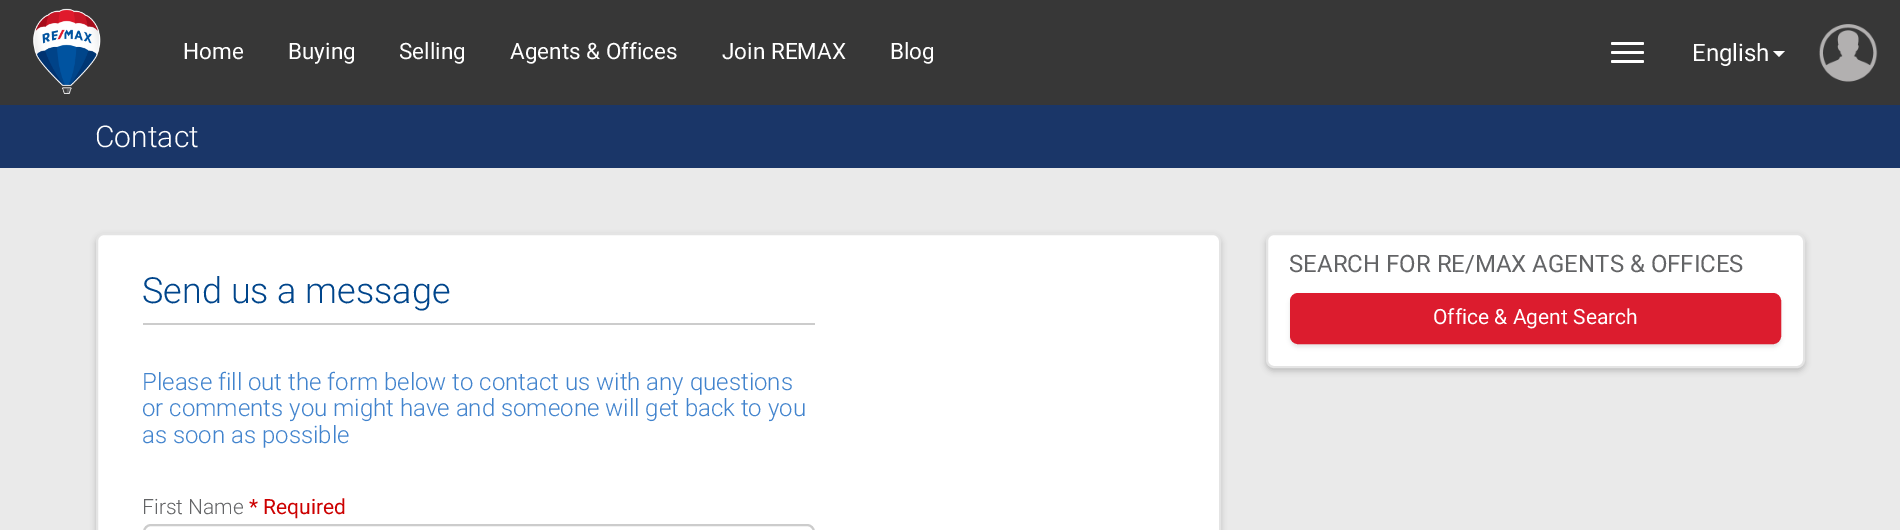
%!PS
<< /PageSize [1900 530] /PageUsesTransparency true >> setpagedevice
/mt/moveto load def
/li/lineto load def
/cp/closepath load def
/fl/fill load def
/st/stroke load def
/gs/gsave load def
/gr/grestore load def
/lw/setlinewidth load def
/co { dup -16 bitshift 255 div exch dup -8 bitshift 255 and 255 div exch 255 and 255 div setrgbcolor } def
/fn { [ exch dup neg 0 0 3 -1 roll 0 0 ] selectfont } def
/tx { co fn moveto show } def
/bx { co rectfill } def
/al { dup .setfillconstantalpha .setstrokeconstantalpha } def
/rr { 5 dict begin { /r /h /w /y /x } { exch def } forall
  x r add y moveto x w add y 2 copy h add r arct x w add y h add x 1 index r arct
  x y h add x y r arct x y 2 copy exch w add exch r arct closepath end } def
/sh { 12 dict begin { /a /b /q /h /w /y /x } { exch def } forall gsave /was 0 def
  9 -2 -9 { dup b mul 4 div /e exch def 1 sub .425 mul 2.718 exch exp 1 add a .99 .min exch div /now exch def
    1 1 now sub 1 was sub div sub al /was now def
    w h .min e 2 mul add 0 gt { x e sub y e sub w e 2 mul add h e 2 mul add
      q e add b .6 mul add w h .min 2 div e add .min 0 .max rr fill } if } for grestore end } def
/im { 5 dict begin { /h /w /y /x /name } { exch def } forall
  gsave x y translate w h scale
  w h 8 [w 0 0 h 0 0] name (r) file false 3 colorimage grestore end } def
0 .pushpdf14devicefilter
0 530 translate 1 -1 scale
4 setmiterlimit
0 0 1900 530 16#EAEAEA bx
0 0 1900 105 16#373737 bx
(media/1.raw) 33 8 68 86 im
16#FFFFFF co
1611 42 33 3 1.5 rr fl
1611 51 33 3 1.5 rr fl
1611 60 33 3 1.5 rr fl
1773 51 mt 1785 51 li 1779 57 li cp fl
(media/2.raw) 1819 24 59 58 im
0 105 1900 63 16#1A3668 bx
16#000000 co
96 236 1125 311 8 3 .2 sh
16#FFFFFF co
97 234 1123 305 7 rr gs fl gr
16#E4E4E4 co
2 lw
st
143 323 672 2 16#CCCCCC bx
144 525 670 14 7 rr st
16#000000 co
1266 236 539 135 8 3 .2 sh
16#FFFFFF co
1267 234 537 133 7 rr gs fl gr
16#E4E4E4 co
st
16#000000 co
1290 296 491 51 8 2 .1 sh
16#DC1C2E co
1291 294 489 49 7 rr gs fl gr
st
(Home) 183 59 /Roboto-Regular 22.5 16#FFFFFF tx
(Buying) 288 59 /Roboto-Regular 22.5 16#FFFFFF tx
(Selling) 399 59 /Roboto-Regular 22.5 16#FFFFFF tx
(Agents & Offices) 510 59 /Roboto-Regular 22.5 16#FFFFFF tx
(Join REMAX) 722 59 /Roboto-Regular 22.5 16#FFFFFF tx
(Blog) 890 59 /Roboto-Regular 22.5 16#FFFFFF tx
(English) 1692 61 /Roboto-Regular 24 16#FFFFFF tx
(Contact) 95 147 /Roboto-Light 30 16#FFFFFF tx
(Send us a message) 142 303 /Roboto-Light 36 16#00458B tx
(Please fill out the form below to contact us with any questions) 142 390 /Roboto-Light 24 16#4183CD tx
(or comments you might have and someone will get back to you) 142 416 /Roboto-Light 24 16#4183CD tx
(as soon as possible) 142 443 /Roboto-Light 24 16#4183CD tx
(First Name) 142 514 /Roboto-Light 21 16#636466 tx
(* Required) 249 514 /Roboto-Regular 21 16#CC0000 tx
(SEARCH FOR RE/MAX AGENTS & OFFICES) 1289 272 /Roboto-Regular 24 16#636466 tx
(Office & Agent Search) 1433 324 /Roboto-Regular 21 16#FFFFFF tx
.poppdf14devicefilter showpage
